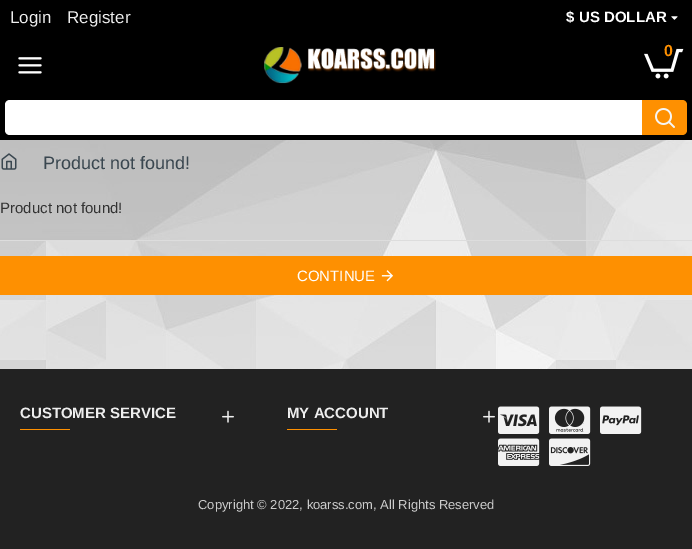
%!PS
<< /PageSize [692 549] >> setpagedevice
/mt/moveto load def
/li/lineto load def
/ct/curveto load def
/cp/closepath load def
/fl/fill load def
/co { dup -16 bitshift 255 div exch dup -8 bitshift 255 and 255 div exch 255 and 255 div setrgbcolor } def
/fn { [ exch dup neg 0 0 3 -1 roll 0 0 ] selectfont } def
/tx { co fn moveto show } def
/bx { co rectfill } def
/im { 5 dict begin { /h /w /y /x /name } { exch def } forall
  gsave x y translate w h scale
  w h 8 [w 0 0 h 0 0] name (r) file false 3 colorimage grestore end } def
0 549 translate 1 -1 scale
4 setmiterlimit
0 0 692 549 16#FFFFFF bx
(media/1.raw) 0 140 692 229 im
0 0 692 140 16#000000 bx
16#FFFFFF co
10 100 mt 642 100 li 642 135 li 10 135 li 7 135 5 133 5 130 ct 5 105 li 5 102 7 100 10 100 ct cp fl
16#FE9001 co
642 100 mt 682 100 li 685 100 687 102 687 105 ct 687 130 li 687 133 685 135 682 135 ct 642 135 li cp fl
(media/2.raw) 655 108 20 20 im
(media/3.raw) 671 16 7 4 im
(media/4.raw) 18 57 24 17 im
(media/5.raw) 264 47 172 37 im
(media/6.raw) 644 48 40 31 im
(media/7.raw) 1 153 16 17 im
0 240 692 1 16#DDDDDD bx
0 256 692 39 16#FE9001 bx
(media/8.raw) 381 270 12 12 im
0 369 692 180 16#222222 bx
(media/9.raw) 222 410 12 13 im
20 429 50 1 16#FE9001 bx
(media/9.raw) 483 410 12 13 im
287 429 50 1 16#FE9001 bx
(media/10.raw) 498 406 42 28 im
(media/11.raw) 549 406 42 28 im
(media/12.raw) 600 406 42 28 im
(media/13.raw) 498 438 42 28 im
(media/14.raw) 549 438 42 28 im
(Login) 10 23 /Arimo-Regular 17 16#EEEEEE tx
(Register) 67 23 /Arimo-Regular 17 16#EEEEEE tx
($) 566 22 /Arimo-Bold 15 16#FFFFFF tx
(US DOLLAR) 579 22 /Arimo-Bold 15 16#FFFFFF tx
(0) 664 56 /Arimo-Bold 16 16#FE9001 tx
(Product not found!) 43 169 /Arimo-Regular 18 16#3A4750 tx
(Product not found!) 0 213 /Arimo-Regular 15 16#333333 tx
(CONTINUE) 297 281 /Arimo-Regular 15 16#FFFFFF tx
(CUSTOMER SERVICE) 20 418 /Arimo-Bold 15 16#EEEEEE tx
(MY ACCOUNT) 287 418 /Arimo-Bold 15 16#EEEEEE tx
(Copyright © 2022, koarss.com, All Rights Reserved) 198 509 /Arimo-Regular 13 16#CCCCCC tx
showpage
